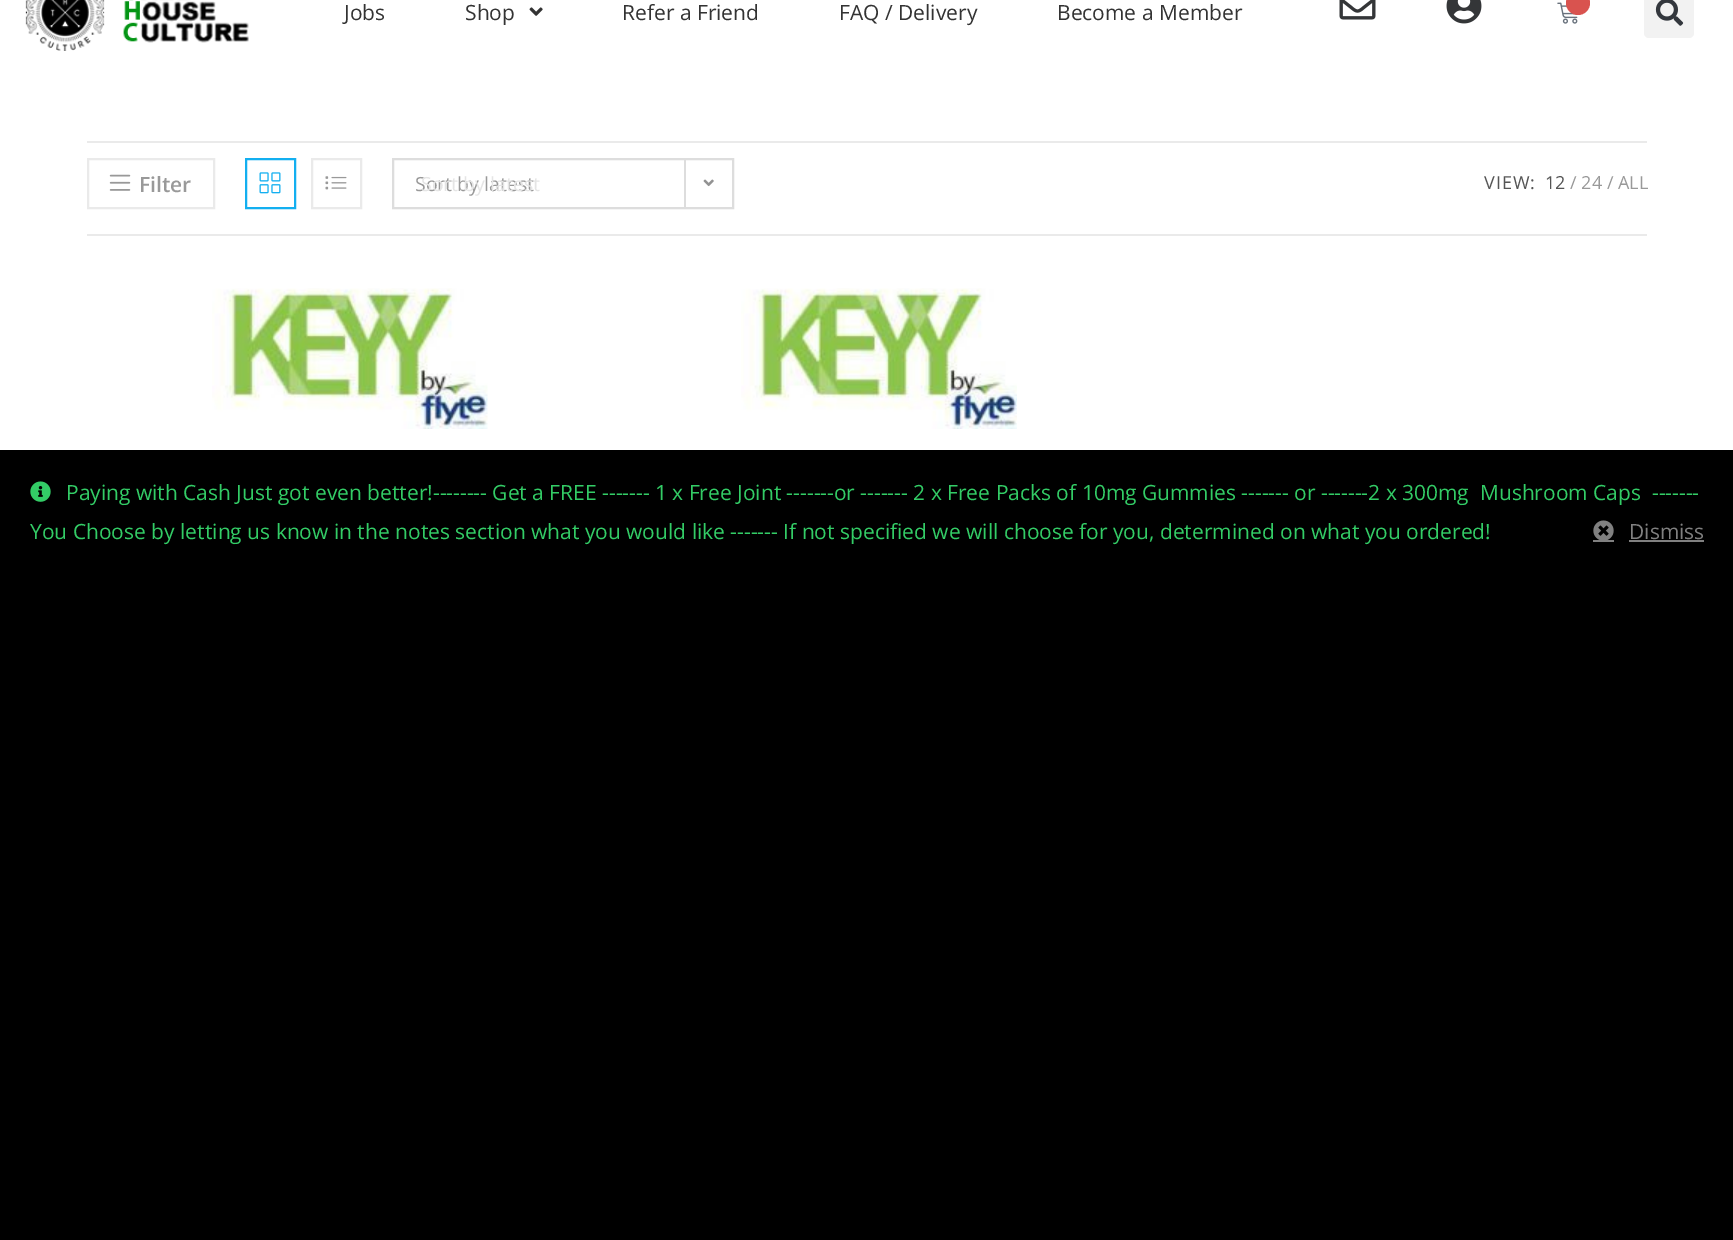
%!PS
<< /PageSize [1733 1240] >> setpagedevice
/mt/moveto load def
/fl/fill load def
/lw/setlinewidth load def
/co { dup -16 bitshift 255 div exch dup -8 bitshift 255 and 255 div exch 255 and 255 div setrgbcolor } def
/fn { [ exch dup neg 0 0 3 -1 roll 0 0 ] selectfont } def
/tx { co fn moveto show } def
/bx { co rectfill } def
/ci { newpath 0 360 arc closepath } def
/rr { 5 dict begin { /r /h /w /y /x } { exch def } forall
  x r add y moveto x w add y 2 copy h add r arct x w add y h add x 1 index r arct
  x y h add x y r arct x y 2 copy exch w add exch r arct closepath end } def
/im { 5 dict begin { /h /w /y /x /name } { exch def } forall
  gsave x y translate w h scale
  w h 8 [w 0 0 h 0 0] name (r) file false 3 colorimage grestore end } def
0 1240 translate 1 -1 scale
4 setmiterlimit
0 0 1733 1240 16#FFFFFF bx
(media/1.raw) 25 0 224 51 im
(media/2.raw) 529 7 14 9 im
(media/3.raw) 1339 0 37 20 im
(media/4.raw) 1446 0 36 24 im
(media/5.raw) 1557 2 21 22 im
16#D9534F co
1578 3 12 ci fl
16#F2F2F2 co
1644 -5 50 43 5 rr fl
(media/6.raw) 1655 0 29 26 im
87 141 1560 2 16#EAEAEA bx
87 234 1560 2 16#EAEAEA bx
2 lw
88 159 126 49 rectstroke
(media/7.raw) 109 174 22 17 im
16#13AFF0 co
246 159 49 49 rectstroke
(media/8.raw) 259 172 22 22 im
16#EAEAEA co
312 159 49 49 rectstroke
(media/9.raw) 325 176 22 14 im
16#DDDDDD co
393 159 340 49 rectstroke
684 159 2 48 16#DDDDDD bx
(media/10.raw) 703 179 11 8 im
(media/11.raw) 212 288 276 141 im
(media/12.raw) 741 288 276 141 im
0 450 1733 790 16#000000 bx
(media/13.raw) 30 481 21 21 im
(media/14.raw) 1593 520 21 20 im
1629 540 75 2 16#808080 bx
1593 540 21 2 16#808080 bx
(Jobs) 344 20 /OpenSans-Regular 21 16#333333 tx
(Shop) 465 20 /OpenSans-Regular 21 16#333333 tx
(Refer a Friend) 622 20 /OpenSans-Regular 21 16#333333 tx
(FAQ / Delivery) 839 20 /OpenSans-Regular 21 16#333333 tx
(Become a Member) 1057 20 /OpenSans-Regular 21 16#333333 tx
(Filter) 139 192 /OpenSans-SemiBold 21 16#999999 tx
(Sort by latest) 415 191 /OpenSans-Regular 19.5 16#999999 tx
(Sort by latest) 421 191 /OpenSans-Regular 19.5 16#E5E5E5 tx
/OpenSans-Regular 18 fn
16#555555 co
1484 189 mt 1 0 (VIEW:) ashow
(12) 1545 189 /OpenSans-Regular 18 16#555555 tx
(/ 24 / ALL) 1570 189 /OpenSans-Regular 18 16#999999 tx
(Paying with Cash Just got even better!-------- Get a FREE ------- 1 x Free Joint -------or ------- 2 x Free Packs of 10mg Gummies ------- or -------2 x 300mg  Mushroom Caps  -------) 66 500 /OpenSans-Regular 21 16#33CC66 tx
(You Choose by letting us know in the notes section what you would like ------- If not specified we will choose for you, determined on what you ordered!) 30 539 /OpenSans-Regular 21 16#33CC66 tx
(Dismiss) 1629 539 /OpenSans-Regular 21 16#808080 tx
showpage
